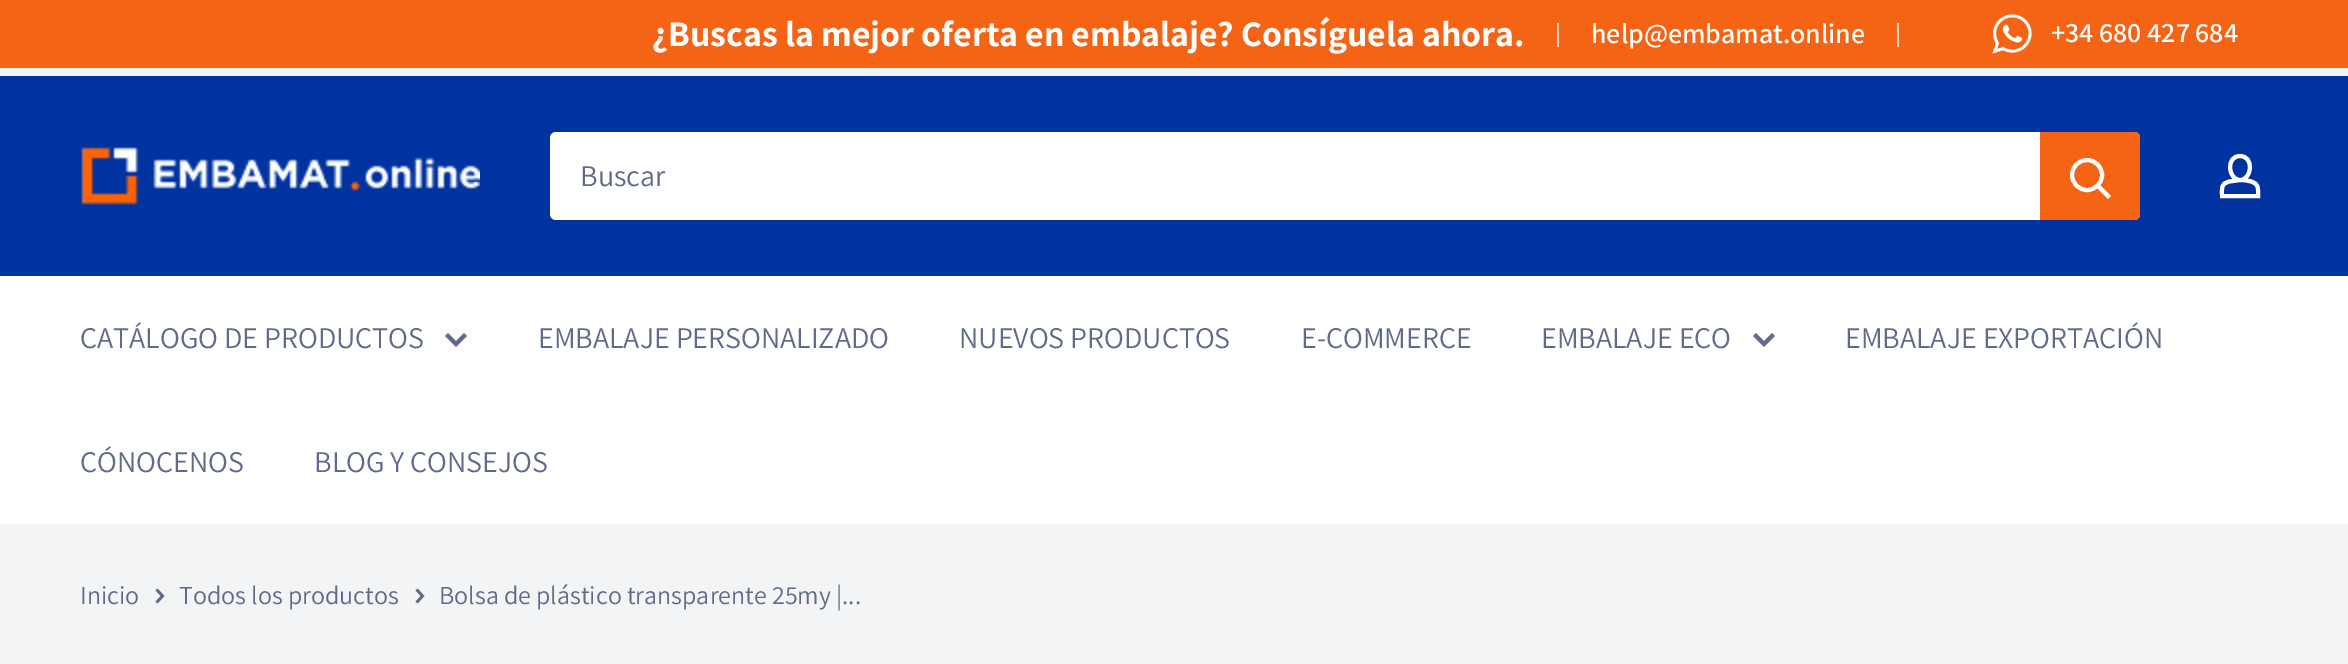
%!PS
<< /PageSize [2348 664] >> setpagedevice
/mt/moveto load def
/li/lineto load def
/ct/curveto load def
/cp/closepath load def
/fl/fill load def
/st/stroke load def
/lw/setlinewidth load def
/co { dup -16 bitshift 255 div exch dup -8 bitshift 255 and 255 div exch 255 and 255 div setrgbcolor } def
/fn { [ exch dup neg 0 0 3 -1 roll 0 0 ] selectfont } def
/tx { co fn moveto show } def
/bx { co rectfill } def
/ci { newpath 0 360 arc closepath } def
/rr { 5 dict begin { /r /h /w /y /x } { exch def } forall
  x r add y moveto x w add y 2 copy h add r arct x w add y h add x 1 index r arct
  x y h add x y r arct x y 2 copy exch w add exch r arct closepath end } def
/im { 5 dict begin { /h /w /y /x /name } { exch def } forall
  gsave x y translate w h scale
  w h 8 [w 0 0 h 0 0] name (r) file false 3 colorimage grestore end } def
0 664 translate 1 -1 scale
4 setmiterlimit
0 0 2348 664 16#F2F4F5 bx
0 0 2348 68 16#F46414 bx
(media/1.raw) 1992 14 40 40 im
0 76 2348 200 16#0032A0 bx
(media/2.raw) 81 147 399 58 im
16#FFFFFF co
550 132 1590 88 6 rr fl
16#F46414 co
2040 132 mt 2134 132 li 2137.5 132 2140 134.5 2140 138 ct 2140 214 li 2140 217.5 2137.5 220 2134 220 ct 2040 220 li cp fl
16#FFFFFF co
4 lw
2 setlinecap
2108 196 mt 2098 186 li st
0 setlinecap
2087 175 15 ci st
2240 180 mt 2244 180 2247.5 180.5 2251 181.5 ct 2259.5 184 2258 188.5 2258 196 ct 2222 196 li 2222 188 2220.5 183.5 2229.5 181.5 ct cp 2240 180 mt 2228 180 2225.5 156 2240 156 ct 2254.5 156 2252 180 2240 180 ct cp st
0 276 2348 248 16#FFFFFF bx
16#616A8B co
2 setlinecap
464 336 mt 456 344 li 448 336 li st
1772 336 mt 1764 344 li 1756 336 li st
2.7 lw
157.5 590.5 mt 162.5 596 li 157.5 601.5 li st
417.5 590.5 mt 422.5 596 li 417.5 601.5 li st
(¿Buscas la mejor oferta en embalaje? Consíguela ahora.) 652 46 /Assistant-Bold 36 16#FFFFFF tx
(|) 1555 41 /Assistant-SemiBold 24 16#FFFFFF tx
(help@embamat.online) 1591 43 /Assistant-SemiBold 28 16#FFFFFF tx
(|) 1895 41 /Assistant-SemiBold 24 16#FFFFFF tx
(+34 680 427 684) 2051 42 /Assistant-SemiBold 28 16#FFFFFF tx
(Buscar) 580 186 /Assistant-Regular 30 16#616A8B tx
(CATÁLOGO DE PRODUCTOS) 80 348 /Assistant-Regular 30 16#616A8B tx
(EMBALAJE PERSONALIZADO) 538 348 /Assistant-Regular 30 16#616A8B tx
(NUEVOS PRODUCTOS) 959 348 /Assistant-Regular 30 16#616A8B tx
(E-COMMERCE) 1301 348 /Assistant-Regular 30 16#616A8B tx
(EMBALAJE ECO) 1541 348 /Assistant-Regular 30 16#616A8B tx
(EMBALAJE EXPORTACIÓN) 1845 348 /Assistant-Regular 30 16#616A8B tx
(CÓNOCENOS) 80 472 /Assistant-Regular 30 16#616A8B tx
(BLOG Y CONSEJOS) 314 472 /Assistant-Regular 30 16#616A8B tx
(Inicio) 80 604 /Assistant-Regular 26 16#616A8B tx
(Todos los productos) 179 604 /Assistant-Regular 26 16#616A8B tx
(Bolsa de plástico transparente 25my |...) 439 604 /Assistant-Regular 26 16#616A8B tx
showpage
